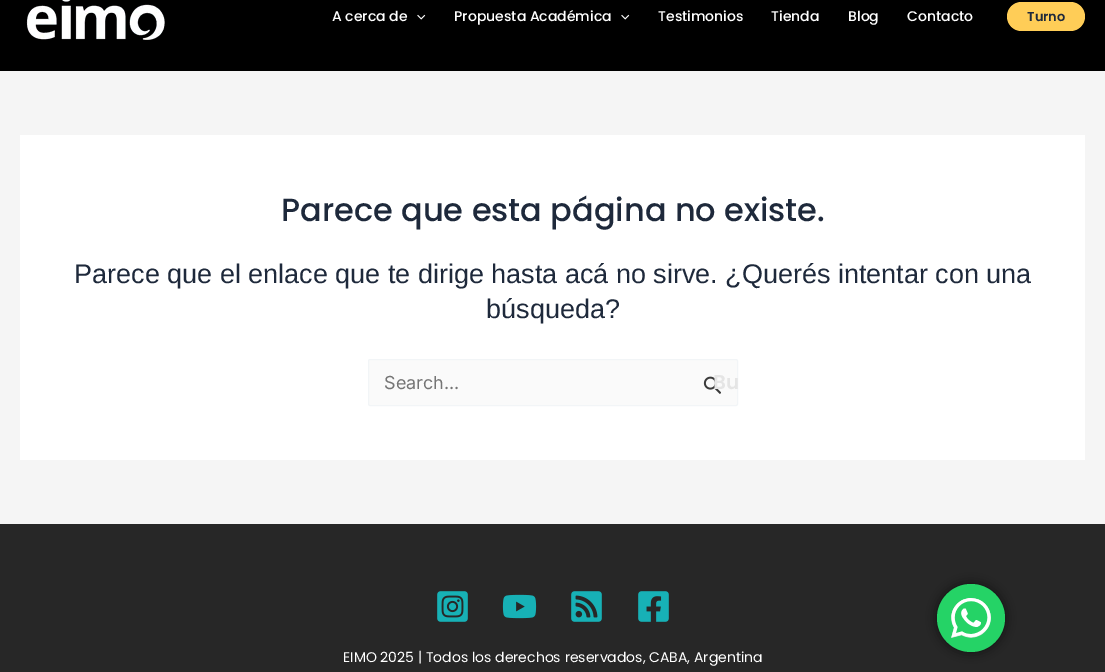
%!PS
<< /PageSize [1105 672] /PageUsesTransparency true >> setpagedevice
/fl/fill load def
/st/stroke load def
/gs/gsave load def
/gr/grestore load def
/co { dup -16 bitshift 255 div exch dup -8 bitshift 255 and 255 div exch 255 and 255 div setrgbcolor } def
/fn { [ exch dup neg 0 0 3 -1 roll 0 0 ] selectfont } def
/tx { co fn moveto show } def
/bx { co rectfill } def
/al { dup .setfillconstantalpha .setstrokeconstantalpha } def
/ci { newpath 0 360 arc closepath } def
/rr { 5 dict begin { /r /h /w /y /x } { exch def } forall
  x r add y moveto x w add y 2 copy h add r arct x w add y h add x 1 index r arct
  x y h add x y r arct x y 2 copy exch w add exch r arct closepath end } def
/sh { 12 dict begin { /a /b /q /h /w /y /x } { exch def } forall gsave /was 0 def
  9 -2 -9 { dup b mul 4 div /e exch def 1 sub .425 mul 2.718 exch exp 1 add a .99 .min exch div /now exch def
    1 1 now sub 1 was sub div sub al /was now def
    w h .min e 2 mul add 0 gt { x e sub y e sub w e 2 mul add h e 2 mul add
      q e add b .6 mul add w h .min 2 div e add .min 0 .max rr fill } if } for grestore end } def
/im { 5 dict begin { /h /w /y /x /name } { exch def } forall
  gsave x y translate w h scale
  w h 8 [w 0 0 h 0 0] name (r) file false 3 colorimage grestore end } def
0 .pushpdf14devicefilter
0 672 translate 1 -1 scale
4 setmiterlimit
0 0 1105 672 16#F5F5F5 bx
0 0 1105 71 16#000000 bx
(media/1.raw) 26 0 139 40 im
(media/2.raw) 417 14 9 6 im
(media/2.raw) 621 14 9 6 im
16#FFCD57 co
1007 2 78 29 14.5 rr fl
20 135 1065 325 16#FFFFFF bx
16#FAFAFA co
368.5 359.5 369 46 1.5 rr gs fl gr
16#F2F5F7 co
st
(media/3.raw) 703 376 18 18 im
0 524 1105 148 16#272727 bx
(media/4.raw) 437 591 31 31 im
(media/5.raw) 502 594 35 25 im
(media/6.raw) 571 591 31 31 im
(media/7.raw) 638 591 31 31 im
16#000000 co
937 584 68 68 34 5.5 .5 sh
16#25D366 co
971 618 34 ci fl
(media/8.raw) 951 598 40 40 im
(A cerca de) 332 21 /Poppins-Medium 14 16#FFFFFF tx
(Propuesta Académica) 454 21 /Poppins-Medium 14 16#FFFFFF tx
(Testimonios) 658 21 /Poppins-Medium 14 16#FFFFFF tx
(Tienda) 771 21 /Poppins-Medium 14 16#FFFFFF tx
(Blog) 848 21 /Poppins-Medium 14 16#FFFFFF tx
(Contacto) 907 21 /Poppins-Medium 14 16#FFFFFF tx
(Turno) 1027 21 /Poppins-SemiBold 13 16#1E293B tx
(Parece que esta página no existe.) 281 221 /Poppins-Medium 32 16#1E293B tx
(Parece que el enlace que te dirige hasta acá no sirve. ¿Querés intentar con una) 74 283 /LiberationSans-Regular 27 16#1E293B tx
(búsqueda?) 486 318 /LiberationSans-Regular 27 16#1E293B tx
(Search...) 384 389 /Inter-Regular 18 16#757575 tx
(Bu) 713 389 /Poppins-SemiBold 20 16#E5E5E5 tx
(EIMO 2025 | Todos los derechos reservados, CABA, Argentina) 343 662 /Poppins-Regular 14 16#FFFFFF tx
.poppdf14devicefilter showpage
